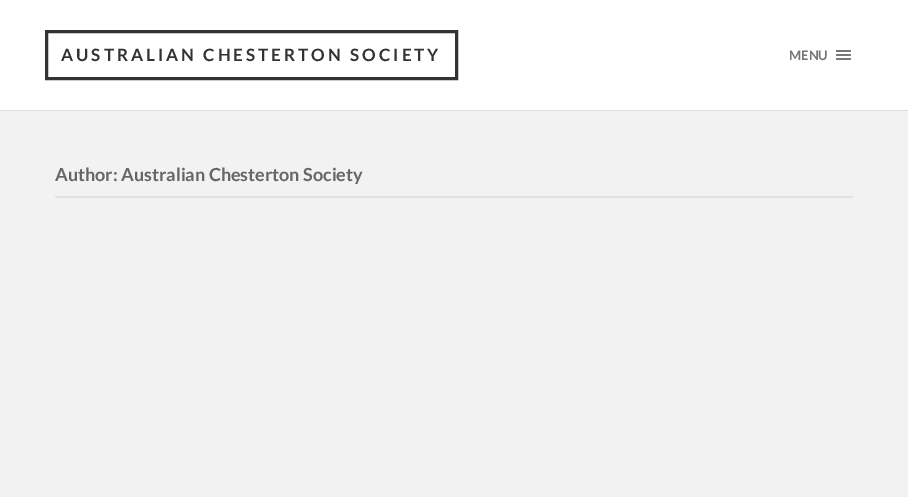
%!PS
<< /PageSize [908 497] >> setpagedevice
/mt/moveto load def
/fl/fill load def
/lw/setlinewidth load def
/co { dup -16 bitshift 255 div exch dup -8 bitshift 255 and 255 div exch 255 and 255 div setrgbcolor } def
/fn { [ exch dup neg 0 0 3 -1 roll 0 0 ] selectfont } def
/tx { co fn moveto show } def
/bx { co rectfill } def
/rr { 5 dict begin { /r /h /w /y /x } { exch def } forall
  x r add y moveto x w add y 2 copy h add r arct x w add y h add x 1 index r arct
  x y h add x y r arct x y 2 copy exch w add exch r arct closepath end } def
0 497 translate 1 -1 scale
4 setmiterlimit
0 0 908 497 16#F2F2F2 bx
0 0 908 110 16#FFFFFF bx
0 110 908 1 16#DDDDDD bx
16#333333 co
3 lw
46.5 31.5 410 47 rectstroke
16#767676 co
836 50 15 2 1 rr fl
836 54 15 2 1 rr fl
836 58 15 2 1 rr fl
55 196 798 2 16#E1E1E1 bx
/Lato-Bold 17 fn
16#333333 co
61 61 mt 3 0 (AUSTRALIAN CHESTERTON SOCIETY) ashow
(MENU) 789 60 /Lato-Bold 13 16#767676 tx
(Author: Australian Chesterton Society) 55 181 /Lato-Bold 18 16#666666 tx
showpage
